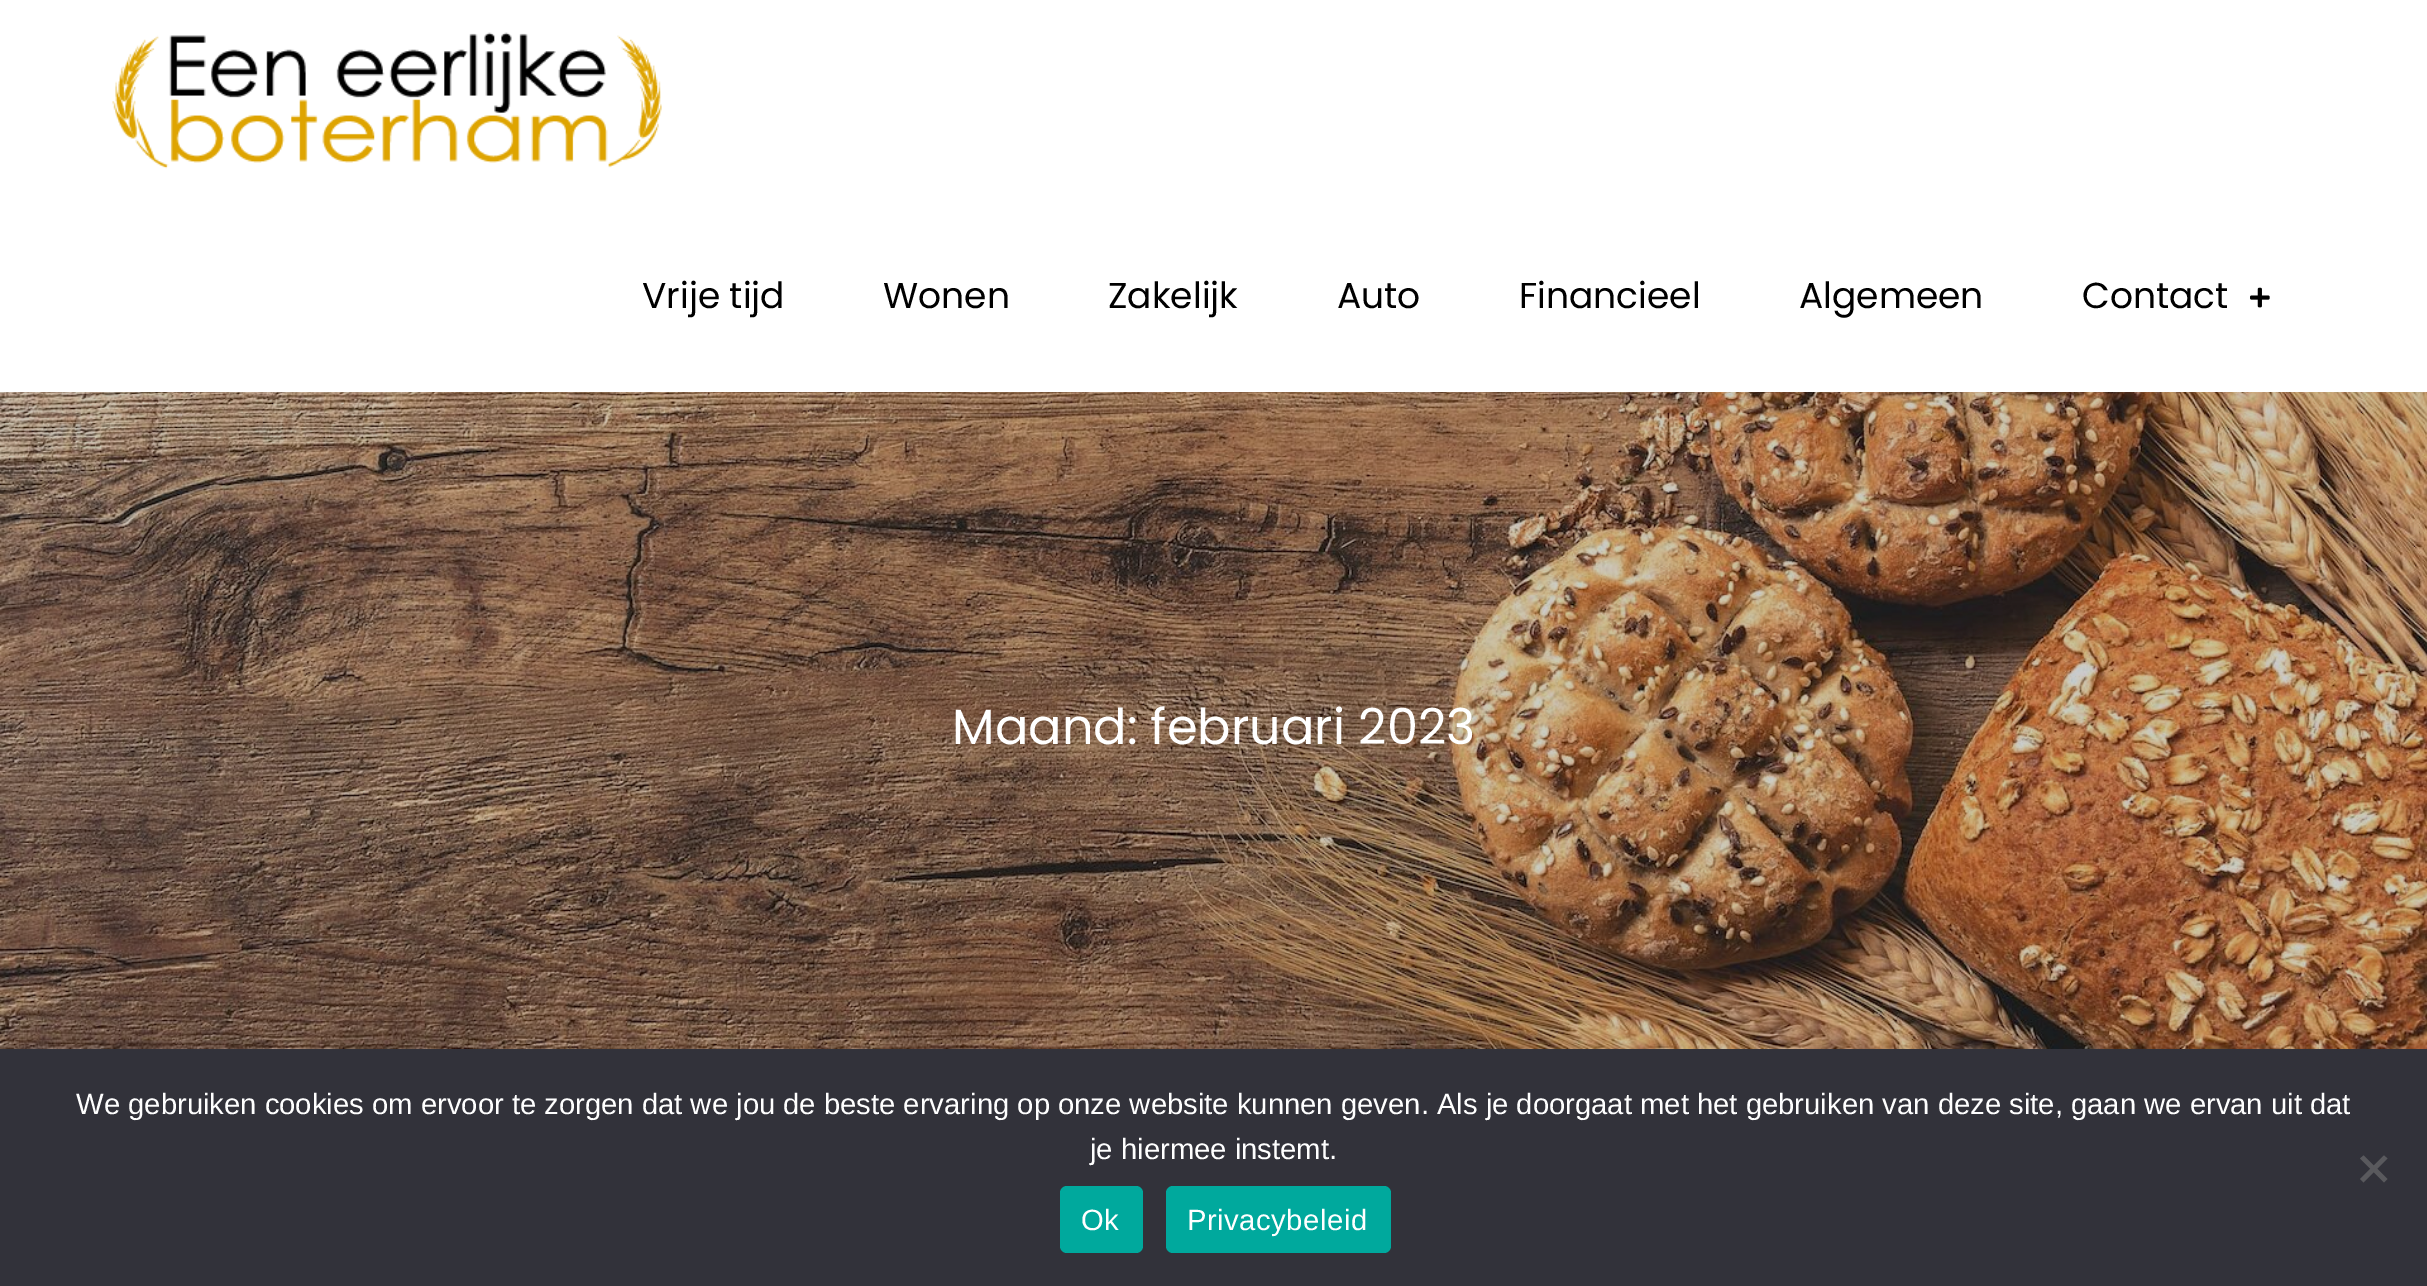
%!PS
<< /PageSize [2427 1286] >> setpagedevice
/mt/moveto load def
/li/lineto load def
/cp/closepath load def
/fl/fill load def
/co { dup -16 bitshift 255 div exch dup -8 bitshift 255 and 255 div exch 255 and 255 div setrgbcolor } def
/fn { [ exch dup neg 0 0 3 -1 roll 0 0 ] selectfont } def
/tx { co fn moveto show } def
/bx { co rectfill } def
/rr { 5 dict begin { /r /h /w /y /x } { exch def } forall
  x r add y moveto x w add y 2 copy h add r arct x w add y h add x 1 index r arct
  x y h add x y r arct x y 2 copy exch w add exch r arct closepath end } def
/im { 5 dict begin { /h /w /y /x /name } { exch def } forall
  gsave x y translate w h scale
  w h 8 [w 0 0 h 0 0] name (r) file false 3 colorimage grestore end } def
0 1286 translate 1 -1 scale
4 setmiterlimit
0 0 2427 1286 16#FFFFFF bx
(media/1.raw) 112 32 550 137 im
(media/2.raw) 2250 287 20 21 im
(media/3.raw) 0 392 2427 657 im
0 1049 2427 237 16#32323A bx
16#59595D co
2384 1155.5 mt 2387.5 1158.5 li 2363.5 1182.5 li 2360 1179 li cp fl
2360 1158.5 mt 2363.5 1155.5 li 2387.5 1179 li 2384 1182.5 li cp fl
16#00A99D co
1060 1186 83 67 7 rr fl
1166 1186 225 67 7 rr fl
(Vrije tijd) 642 308 /Poppins-Regular 36 16#000000 tx
(Wonen) 883 308 /Poppins-Regular 36 16#000000 tx
(Zakelijk) 1108 308 /Poppins-Regular 36 16#000000 tx
(Auto) 1337 308 /Poppins-Regular 36 16#000000 tx
(Financieel) 1519 308 /Poppins-Regular 36 16#000000 tx
(Algemeen) 1799 308 /Poppins-Regular 36 16#000000 tx
(Contact) 2082 308 /Poppins-Regular 36 16#000000 tx
(Maand: februari 2023) 952 744 /Poppins-Regular 49.5 16#FFFFFF tx
(We gebruiken cookies om ervoor te zorgen dat we jou de beste ervaring op onze website kunnen geven. Als je doorgaat met het gebruiken van deze site, gaan we ervan uit dat) 76 1114 /LiberationSans-Regular 29.25 16#FFFFFF tx
(je hiermee instemt.) 1090 1159 /LiberationSans-Regular 29.25 16#FFFFFF tx
1081 1230 mt .5 0 (Ok) ashow
1187 1230 mt .5 0 (Privacybeleid) ashow
showpage
